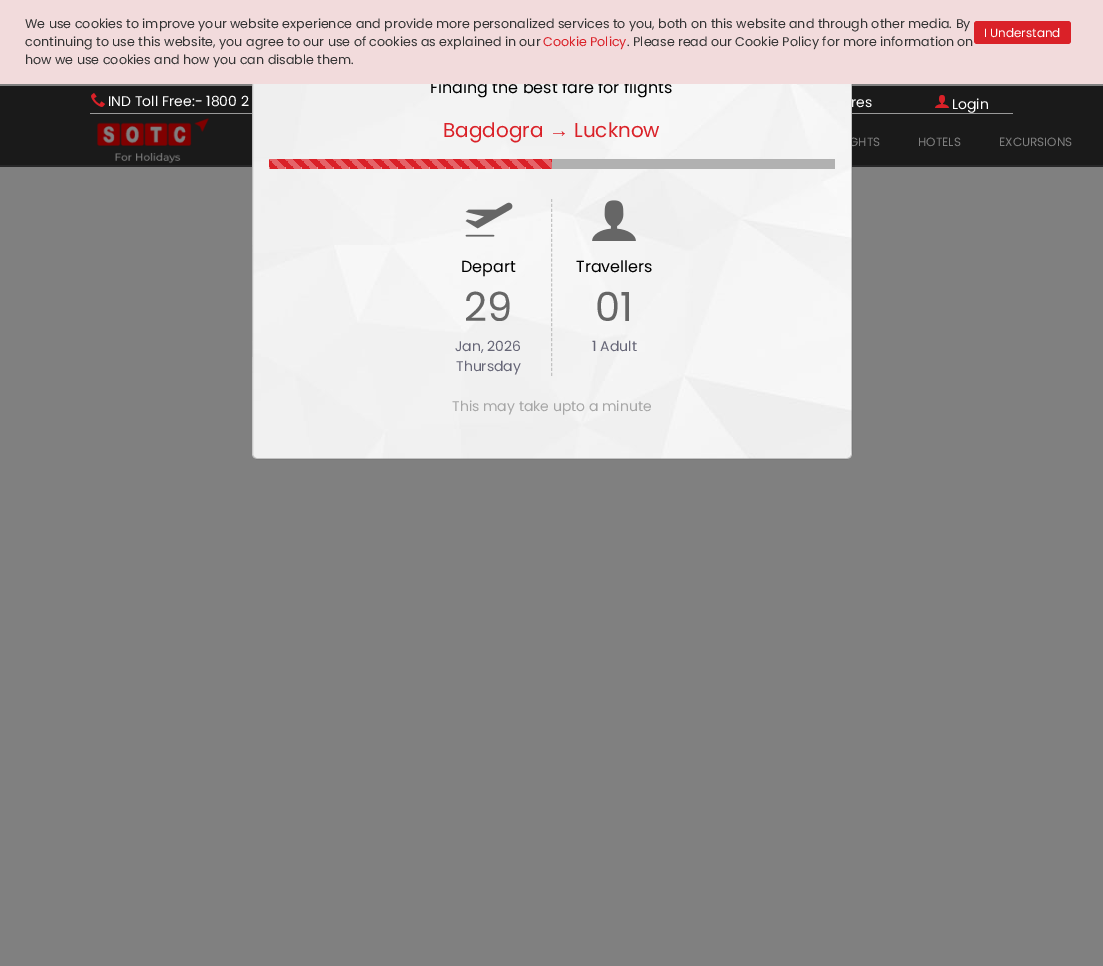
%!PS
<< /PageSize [1103 966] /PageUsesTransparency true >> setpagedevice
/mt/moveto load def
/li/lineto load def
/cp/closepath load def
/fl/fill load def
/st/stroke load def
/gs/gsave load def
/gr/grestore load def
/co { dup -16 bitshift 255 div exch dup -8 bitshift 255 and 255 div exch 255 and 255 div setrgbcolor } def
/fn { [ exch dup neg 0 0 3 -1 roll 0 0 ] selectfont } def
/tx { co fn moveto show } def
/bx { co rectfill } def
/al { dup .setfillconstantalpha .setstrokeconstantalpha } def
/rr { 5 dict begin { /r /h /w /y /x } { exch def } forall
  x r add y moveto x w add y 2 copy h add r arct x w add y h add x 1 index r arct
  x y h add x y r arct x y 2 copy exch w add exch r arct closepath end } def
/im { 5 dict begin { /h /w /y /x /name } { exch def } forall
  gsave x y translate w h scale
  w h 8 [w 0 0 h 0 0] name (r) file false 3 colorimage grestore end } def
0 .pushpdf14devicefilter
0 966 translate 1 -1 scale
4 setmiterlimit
0 0 1103 966 16#808080 bx
0 86 1103 79 16#1A1A1A bx
90 113 923 1 16#999999 bx
(media/1.raw) 91 93 14 14 im
(media/2.raw) 935 95 14 13 im
0 165 1103 2 16#272728 bx
(media/3.raw) 97 118 112 46 im
(IND Toll Free:- 1800 2) 108 106 /Poppins-Regular 14 16#FFFFFF tx
(res) 851 107 /Poppins-Regular 14 16#FFFFFF tx
(Login) 952 109 /Poppins-Regular 14 16#FFFFFF tx
(GHTS) 849 146 /Poppins-Regular 12 16#808080 tx
(HOTELS) 918 146 /Poppins-Regular 12 16#808080 tx
(EXCURSIONS) 999 146 /Poppins-Regular 12 16#808080 tx
(media/4.raw) 252 84 600 375 im
0.2 al
16#000000 co
252.5 60.5 599 398 4.5 rr st
1 al
(Finding the best fare for flights) 430 93 /Poppins-Regular 16 16#000000 tx
0 0 1103 84 16#F2DBDC bx
16#DA2128 co
974 21 97 23 3 rr fl
(I Understand) 984 37 /Poppins-Regular 12 16#FFFFFF tx
(how we use cookies and how you can disable them.) 25 64 /Poppins-Regular 12.7 16#333333 tx
(. Please read our Cookie Policy for more information on) 627 46 /Poppins-Regular 12.7 16#333333 tx
(Cookie Policy) 543 46 /Poppins-Regular 12.7 16#DA2128 tx
(continuing to use this website, you agree to our use of cookies as explained in our) 25 46 /Poppins-Regular 12.7 16#333333 tx
(We use cookies to improve your website experience and provide more personalized services to you, both on this website and through other media. By) 25 28 /Poppins-Regular 12.7 16#333333 tx
(Bagdogra) 443 137 /Poppins-Regular 20 16#DA2128 tx
(→) 549 137 /LiberationSans-Bold 20 16#DA2128 tx
(Lucknow) 574 137 /Poppins-Regular 20 16#DA2128 tx
552 159 283 10 16#B1B1B1 bx
gs 269 159 mt 285 159 li 285 169 li 269 169 li cp clip newpath
<< /ShadingType 2 /ColorSpace /DeviceRGB /Coords [269 175 285 159] /Extend [true true] /Function << /FunctionType 3 /Domain [0 1] /Functions [<< /FunctionType 2 /Domain [0 1] /C0 [.929 .565 .58] /C1 [.929 .565 .58] /N 1 >> << /FunctionType 2 /Domain [0 1] /C0 [.855 .129 .157] /C1 [.855 .129 .157] /N 1 >> << /FunctionType 2 /Domain [0 1] /C0 [.898 .392 .412] /C1 [.898 .392 .412] /N 1 >> << /FunctionType 2 /Domain [0 1] /C0 [.855 .129 .157] /C1 [.855 .129 .157] /N 1 >>] /Bounds [.25 .5 .75] /Encode [0 1 0 1 0 1 0 1] >> >> shfill gr
gs 285 159 mt 301 159 li 301 169 li 285 169 li cp clip newpath
<< /ShadingType 2 /ColorSpace /DeviceRGB /Coords [285 175 301 159] /Extend [true true] /Function << /FunctionType 3 /Domain [0 1] /Functions [<< /FunctionType 2 /Domain [0 1] /C0 [.929 .565 .58] /C1 [.929 .565 .58] /N 1 >> << /FunctionType 2 /Domain [0 1] /C0 [.855 .129 .157] /C1 [.855 .129 .157] /N 1 >> << /FunctionType 2 /Domain [0 1] /C0 [.898 .392 .412] /C1 [.898 .392 .412] /N 1 >> << /FunctionType 2 /Domain [0 1] /C0 [.855 .129 .157] /C1 [.855 .129 .157] /N 1 >>] /Bounds [.25 .5 .75] /Encode [0 1 0 1 0 1 0 1] >> >> shfill gr
gs 301 159 mt 317 159 li 317 169 li 301 169 li cp clip newpath
<< /ShadingType 2 /ColorSpace /DeviceRGB /Coords [301 175 317 159] /Extend [true true] /Function << /FunctionType 3 /Domain [0 1] /Functions [<< /FunctionType 2 /Domain [0 1] /C0 [.929 .565 .58] /C1 [.929 .565 .58] /N 1 >> << /FunctionType 2 /Domain [0 1] /C0 [.855 .129 .157] /C1 [.855 .129 .157] /N 1 >> << /FunctionType 2 /Domain [0 1] /C0 [.898 .392 .412] /C1 [.898 .392 .412] /N 1 >> << /FunctionType 2 /Domain [0 1] /C0 [.855 .129 .157] /C1 [.855 .129 .157] /N 1 >>] /Bounds [.25 .5 .75] /Encode [0 1 0 1 0 1 0 1] >> >> shfill gr
gs 317 159 mt 333 159 li 333 169 li 317 169 li cp clip newpath
<< /ShadingType 2 /ColorSpace /DeviceRGB /Coords [317 175 333 159] /Extend [true true] /Function << /FunctionType 3 /Domain [0 1] /Functions [<< /FunctionType 2 /Domain [0 1] /C0 [.929 .565 .58] /C1 [.929 .565 .58] /N 1 >> << /FunctionType 2 /Domain [0 1] /C0 [.855 .129 .157] /C1 [.855 .129 .157] /N 1 >> << /FunctionType 2 /Domain [0 1] /C0 [.898 .392 .412] /C1 [.898 .392 .412] /N 1 >> << /FunctionType 2 /Domain [0 1] /C0 [.855 .129 .157] /C1 [.855 .129 .157] /N 1 >>] /Bounds [.25 .5 .75] /Encode [0 1 0 1 0 1 0 1] >> >> shfill gr
gs 333 159 mt 349 159 li 349 169 li 333 169 li cp clip newpath
<< /ShadingType 2 /ColorSpace /DeviceRGB /Coords [333 175 349 159] /Extend [true true] /Function << /FunctionType 3 /Domain [0 1] /Functions [<< /FunctionType 2 /Domain [0 1] /C0 [.929 .565 .58] /C1 [.929 .565 .58] /N 1 >> << /FunctionType 2 /Domain [0 1] /C0 [.855 .129 .157] /C1 [.855 .129 .157] /N 1 >> << /FunctionType 2 /Domain [0 1] /C0 [.898 .392 .412] /C1 [.898 .392 .412] /N 1 >> << /FunctionType 2 /Domain [0 1] /C0 [.855 .129 .157] /C1 [.855 .129 .157] /N 1 >>] /Bounds [.25 .5 .75] /Encode [0 1 0 1 0 1 0 1] >> >> shfill gr
gs 349 159 mt 365 159 li 365 169 li 349 169 li cp clip newpath
<< /ShadingType 2 /ColorSpace /DeviceRGB /Coords [349 175 365 159] /Extend [true true] /Function << /FunctionType 3 /Domain [0 1] /Functions [<< /FunctionType 2 /Domain [0 1] /C0 [.929 .565 .58] /C1 [.929 .565 .58] /N 1 >> << /FunctionType 2 /Domain [0 1] /C0 [.855 .129 .157] /C1 [.855 .129 .157] /N 1 >> << /FunctionType 2 /Domain [0 1] /C0 [.898 .392 .412] /C1 [.898 .392 .412] /N 1 >> << /FunctionType 2 /Domain [0 1] /C0 [.855 .129 .157] /C1 [.855 .129 .157] /N 1 >>] /Bounds [.25 .5 .75] /Encode [0 1 0 1 0 1 0 1] >> >> shfill gr
gs 365 159 mt 381 159 li 381 169 li 365 169 li cp clip newpath
<< /ShadingType 2 /ColorSpace /DeviceRGB /Coords [365 175 381 159] /Extend [true true] /Function << /FunctionType 3 /Domain [0 1] /Functions [<< /FunctionType 2 /Domain [0 1] /C0 [.929 .565 .58] /C1 [.929 .565 .58] /N 1 >> << /FunctionType 2 /Domain [0 1] /C0 [.855 .129 .157] /C1 [.855 .129 .157] /N 1 >> << /FunctionType 2 /Domain [0 1] /C0 [.898 .392 .412] /C1 [.898 .392 .412] /N 1 >> << /FunctionType 2 /Domain [0 1] /C0 [.855 .129 .157] /C1 [.855 .129 .157] /N 1 >>] /Bounds [.25 .5 .75] /Encode [0 1 0 1 0 1 0 1] >> >> shfill gr
gs 381 159 mt 397 159 li 397 169 li 381 169 li cp clip newpath
<< /ShadingType 2 /ColorSpace /DeviceRGB /Coords [381 175 397 159] /Extend [true true] /Function << /FunctionType 3 /Domain [0 1] /Functions [<< /FunctionType 2 /Domain [0 1] /C0 [.929 .565 .58] /C1 [.929 .565 .58] /N 1 >> << /FunctionType 2 /Domain [0 1] /C0 [.855 .129 .157] /C1 [.855 .129 .157] /N 1 >> << /FunctionType 2 /Domain [0 1] /C0 [.898 .392 .412] /C1 [.898 .392 .412] /N 1 >> << /FunctionType 2 /Domain [0 1] /C0 [.855 .129 .157] /C1 [.855 .129 .157] /N 1 >>] /Bounds [.25 .5 .75] /Encode [0 1 0 1 0 1 0 1] >> >> shfill gr
gs 397 159 mt 413 159 li 413 169 li 397 169 li cp clip newpath
<< /ShadingType 2 /ColorSpace /DeviceRGB /Coords [397 175 413 159] /Extend [true true] /Function << /FunctionType 3 /Domain [0 1] /Functions [<< /FunctionType 2 /Domain [0 1] /C0 [.929 .565 .58] /C1 [.929 .565 .58] /N 1 >> << /FunctionType 2 /Domain [0 1] /C0 [.855 .129 .157] /C1 [.855 .129 .157] /N 1 >> << /FunctionType 2 /Domain [0 1] /C0 [.898 .392 .412] /C1 [.898 .392 .412] /N 1 >> << /FunctionType 2 /Domain [0 1] /C0 [.855 .129 .157] /C1 [.855 .129 .157] /N 1 >>] /Bounds [.25 .5 .75] /Encode [0 1 0 1 0 1 0 1] >> >> shfill gr
gs 413 159 mt 429 159 li 429 169 li 413 169 li cp clip newpath
<< /ShadingType 2 /ColorSpace /DeviceRGB /Coords [413 175 429 159] /Extend [true true] /Function << /FunctionType 3 /Domain [0 1] /Functions [<< /FunctionType 2 /Domain [0 1] /C0 [.929 .565 .58] /C1 [.929 .565 .58] /N 1 >> << /FunctionType 2 /Domain [0 1] /C0 [.855 .129 .157] /C1 [.855 .129 .157] /N 1 >> << /FunctionType 2 /Domain [0 1] /C0 [.898 .392 .412] /C1 [.898 .392 .412] /N 1 >> << /FunctionType 2 /Domain [0 1] /C0 [.855 .129 .157] /C1 [.855 .129 .157] /N 1 >>] /Bounds [.25 .5 .75] /Encode [0 1 0 1 0 1 0 1] >> >> shfill gr
gs 429 159 mt 445 159 li 445 169 li 429 169 li cp clip newpath
<< /ShadingType 2 /ColorSpace /DeviceRGB /Coords [429 175 445 159] /Extend [true true] /Function << /FunctionType 3 /Domain [0 1] /Functions [<< /FunctionType 2 /Domain [0 1] /C0 [.929 .565 .58] /C1 [.929 .565 .58] /N 1 >> << /FunctionType 2 /Domain [0 1] /C0 [.855 .129 .157] /C1 [.855 .129 .157] /N 1 >> << /FunctionType 2 /Domain [0 1] /C0 [.898 .392 .412] /C1 [.898 .392 .412] /N 1 >> << /FunctionType 2 /Domain [0 1] /C0 [.855 .129 .157] /C1 [.855 .129 .157] /N 1 >>] /Bounds [.25 .5 .75] /Encode [0 1 0 1 0 1 0 1] >> >> shfill gr
gs 445 159 mt 461 159 li 461 169 li 445 169 li cp clip newpath
<< /ShadingType 2 /ColorSpace /DeviceRGB /Coords [445 175 461 159] /Extend [true true] /Function << /FunctionType 3 /Domain [0 1] /Functions [<< /FunctionType 2 /Domain [0 1] /C0 [.929 .565 .58] /C1 [.929 .565 .58] /N 1 >> << /FunctionType 2 /Domain [0 1] /C0 [.855 .129 .157] /C1 [.855 .129 .157] /N 1 >> << /FunctionType 2 /Domain [0 1] /C0 [.898 .392 .412] /C1 [.898 .392 .412] /N 1 >> << /FunctionType 2 /Domain [0 1] /C0 [.855 .129 .157] /C1 [.855 .129 .157] /N 1 >>] /Bounds [.25 .5 .75] /Encode [0 1 0 1 0 1 0 1] >> >> shfill gr
gs 461 159 mt 477 159 li 477 169 li 461 169 li cp clip newpath
<< /ShadingType 2 /ColorSpace /DeviceRGB /Coords [461 175 477 159] /Extend [true true] /Function << /FunctionType 3 /Domain [0 1] /Functions [<< /FunctionType 2 /Domain [0 1] /C0 [.929 .565 .58] /C1 [.929 .565 .58] /N 1 >> << /FunctionType 2 /Domain [0 1] /C0 [.855 .129 .157] /C1 [.855 .129 .157] /N 1 >> << /FunctionType 2 /Domain [0 1] /C0 [.898 .392 .412] /C1 [.898 .392 .412] /N 1 >> << /FunctionType 2 /Domain [0 1] /C0 [.855 .129 .157] /C1 [.855 .129 .157] /N 1 >>] /Bounds [.25 .5 .75] /Encode [0 1 0 1 0 1 0 1] >> >> shfill gr
gs 477 159 mt 493 159 li 493 169 li 477 169 li cp clip newpath
<< /ShadingType 2 /ColorSpace /DeviceRGB /Coords [477 175 493 159] /Extend [true true] /Function << /FunctionType 3 /Domain [0 1] /Functions [<< /FunctionType 2 /Domain [0 1] /C0 [.929 .565 .58] /C1 [.929 .565 .58] /N 1 >> << /FunctionType 2 /Domain [0 1] /C0 [.855 .129 .157] /C1 [.855 .129 .157] /N 1 >> << /FunctionType 2 /Domain [0 1] /C0 [.898 .392 .412] /C1 [.898 .392 .412] /N 1 >> << /FunctionType 2 /Domain [0 1] /C0 [.855 .129 .157] /C1 [.855 .129 .157] /N 1 >>] /Bounds [.25 .5 .75] /Encode [0 1 0 1 0 1 0 1] >> >> shfill gr
gs 493 159 mt 509 159 li 509 169 li 493 169 li cp clip newpath
<< /ShadingType 2 /ColorSpace /DeviceRGB /Coords [493 175 509 159] /Extend [true true] /Function << /FunctionType 3 /Domain [0 1] /Functions [<< /FunctionType 2 /Domain [0 1] /C0 [.929 .565 .58] /C1 [.929 .565 .58] /N 1 >> << /FunctionType 2 /Domain [0 1] /C0 [.855 .129 .157] /C1 [.855 .129 .157] /N 1 >> << /FunctionType 2 /Domain [0 1] /C0 [.898 .392 .412] /C1 [.898 .392 .412] /N 1 >> << /FunctionType 2 /Domain [0 1] /C0 [.855 .129 .157] /C1 [.855 .129 .157] /N 1 >>] /Bounds [.25 .5 .75] /Encode [0 1 0 1 0 1 0 1] >> >> shfill gr
gs 509 159 mt 525 159 li 525 169 li 509 169 li cp clip newpath
<< /ShadingType 2 /ColorSpace /DeviceRGB /Coords [509 175 525 159] /Extend [true true] /Function << /FunctionType 3 /Domain [0 1] /Functions [<< /FunctionType 2 /Domain [0 1] /C0 [.929 .565 .58] /C1 [.929 .565 .58] /N 1 >> << /FunctionType 2 /Domain [0 1] /C0 [.855 .129 .157] /C1 [.855 .129 .157] /N 1 >> << /FunctionType 2 /Domain [0 1] /C0 [.898 .392 .412] /C1 [.898 .392 .412] /N 1 >> << /FunctionType 2 /Domain [0 1] /C0 [.855 .129 .157] /C1 [.855 .129 .157] /N 1 >>] /Bounds [.25 .5 .75] /Encode [0 1 0 1 0 1 0 1] >> >> shfill gr
gs 525 159 mt 541 159 li 541 169 li 525 169 li cp clip newpath
<< /ShadingType 2 /ColorSpace /DeviceRGB /Coords [525 175 541 159] /Extend [true true] /Function << /FunctionType 3 /Domain [0 1] /Functions [<< /FunctionType 2 /Domain [0 1] /C0 [.929 .565 .58] /C1 [.929 .565 .58] /N 1 >> << /FunctionType 2 /Domain [0 1] /C0 [.855 .129 .157] /C1 [.855 .129 .157] /N 1 >> << /FunctionType 2 /Domain [0 1] /C0 [.898 .392 .412] /C1 [.898 .392 .412] /N 1 >> << /FunctionType 2 /Domain [0 1] /C0 [.855 .129 .157] /C1 [.855 .129 .157] /N 1 >>] /Bounds [.25 .5 .75] /Encode [0 1 0 1 0 1 0 1] >> >> shfill gr
gs 541 159 mt 552 159 li 552 169 li 541 169 li cp clip newpath
<< /ShadingType 2 /ColorSpace /DeviceRGB /Coords [541 175 557 159] /Extend [true true] /Function << /FunctionType 3 /Domain [0 1] /Functions [<< /FunctionType 2 /Domain [0 1] /C0 [.929 .565 .58] /C1 [.929 .565 .58] /N 1 >> << /FunctionType 2 /Domain [0 1] /C0 [.855 .129 .157] /C1 [.855 .129 .157] /N 1 >> << /FunctionType 2 /Domain [0 1] /C0 [.898 .392 .412] /C1 [.898 .392 .412] /N 1 >> << /FunctionType 2 /Domain [0 1] /C0 [.855 .129 .157] /C1 [.855 .129 .157] /N 1 >>] /Bounds [.25 .5 .75] /Encode [0 1 0 1 0 1 0 1] >> >> shfill gr
16#C2C2C2 co
[3 1.97] 0 setdash
551.5 199 mt 551.5 376 li st
(media/5.raw) 465 202 48 35 im
(Depart) 461 272 /Poppins-Regular 16 16#000000 tx
(29) 464 321 /Poppins-Regular 40 16#666666 tx
(Jan, 2026) 455 351 /Poppins-Regular 14 16#666677 tx
(Thursday) 456 371 /Poppins-Regular 14 16#666677 tx
(media/6.raw) 592 200 44 41 im
(Travellers) 576 272 /Poppins-Regular 16 16#000000 tx
(01) 595 321 /Poppins-Regular 40 16#666666 tx
(1 Adult) 592 351 /Poppins-Regular 14 16#666677 tx
(This may take upto a minute) 452 411 /Poppins-Regular 14 16#A6A6A6 tx
.poppdf14devicefilter showpage
